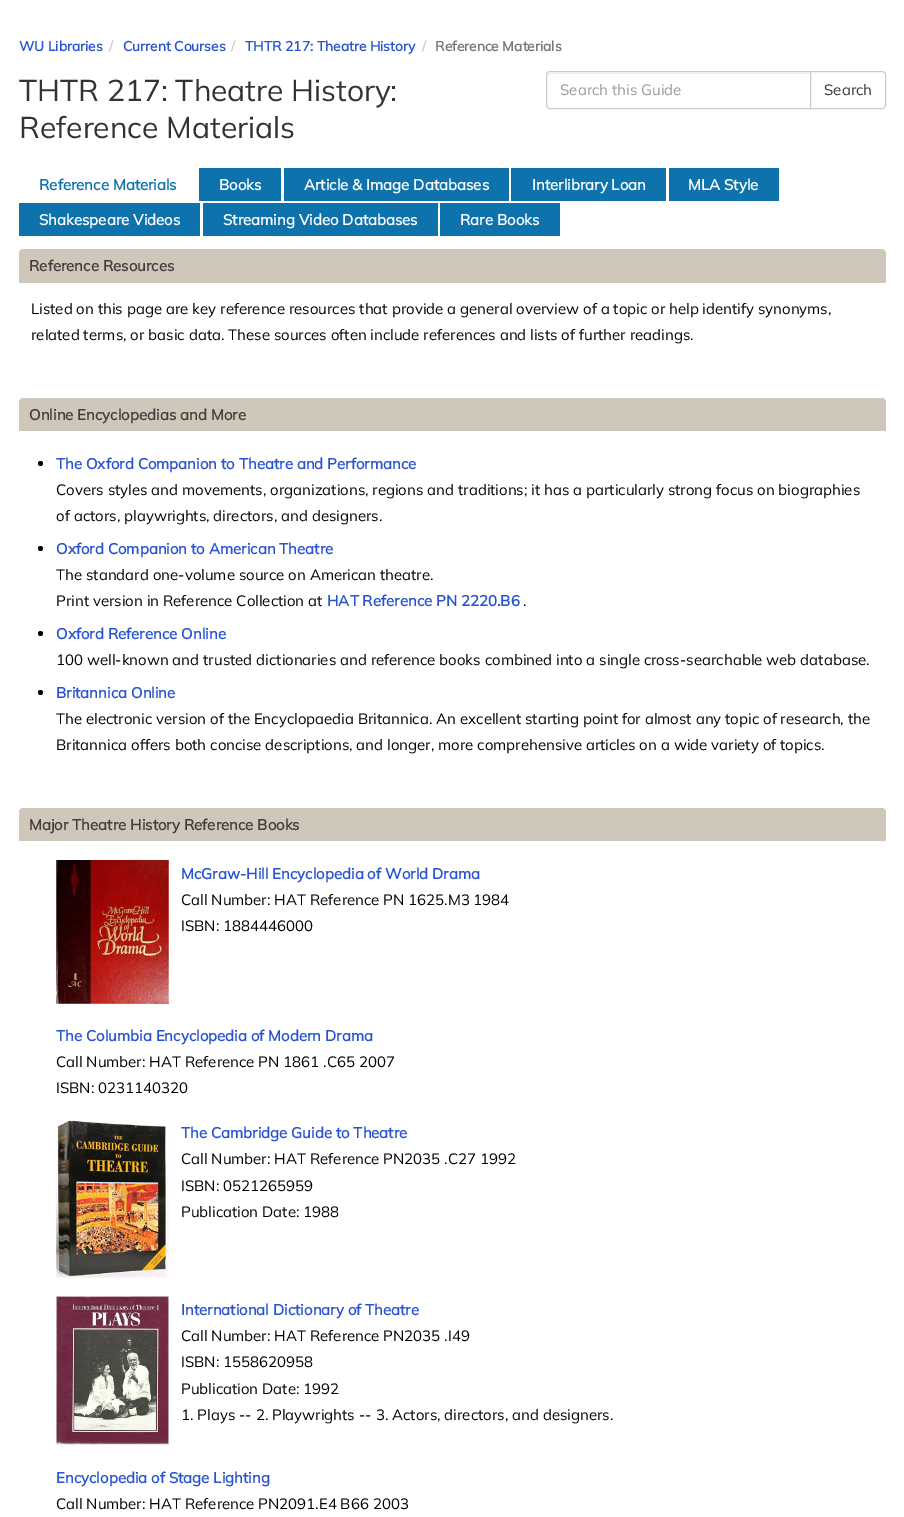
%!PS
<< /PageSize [904 1517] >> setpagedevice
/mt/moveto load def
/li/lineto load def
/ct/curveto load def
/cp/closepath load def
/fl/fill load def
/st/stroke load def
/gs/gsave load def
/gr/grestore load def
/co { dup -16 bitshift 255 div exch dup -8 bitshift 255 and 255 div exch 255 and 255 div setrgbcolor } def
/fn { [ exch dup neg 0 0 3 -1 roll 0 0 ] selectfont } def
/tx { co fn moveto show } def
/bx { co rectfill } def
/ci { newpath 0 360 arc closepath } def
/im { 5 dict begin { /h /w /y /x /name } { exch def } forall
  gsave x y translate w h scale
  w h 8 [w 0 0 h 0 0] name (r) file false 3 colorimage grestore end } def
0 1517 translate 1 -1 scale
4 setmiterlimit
0 0 904 1517 16#FFFFFF bx
16#ECECEC co
550 74 mt 810 74 li 810 73 li 550 73 li 548 74 li 548 76 li 548 75 549 74 550 74 ct cp fl
16#CCCCCC co
550 71.5 mt 810.5 71.5 li 810.5 108.5 li 550 108.5 li 548 108.5 546.5 107 546.5 105 ct 546.5 75 li 546.5 73 548 71.5 550 71.5 ct cp st
16#FFFFFF co
810.5 71.5 mt 882 71.5 li 884 71.5 885.5 73 885.5 75 ct 885.5 105 li 885.5 107 884 108.5 882 108.5 ct 810.5 108.5 li cp gs fl gr
16#CCCCCC co
st
199 168 82 33 16#0E73AD bx
284 168 225 33 16#0E73AD bx
511 168 155 33 16#0E73AD bx
669 168 110 33 16#0E73AD bx
19 203 181 33 16#0E73AD bx
203 203 235 33 16#0E73AD bx
440 203 120 33 16#0E73AD bx
16#CFC8BA co
23 249 mt 882 249 li 884 249 886 251 886 253 ct 886 283 li 19 283 li 19 253 li 19 251 21 249 23 249 ct cp fl
23 398 mt 882 398 li 884 398 886 400 886 402 ct 886 431 li 19 431 li 19 402 li 19 400 21 398 23 398 ct cp fl
16#000000 co
40.5 463.5 2.5 ci fl
40.5 548.5 2.5 ci fl
40.5 633.5 2.5 ci fl
40.5 692.5 2.5 ci fl
16#CFC8BA co
23 808 mt 882 808 li 884 808 886 810 886 812 ct 886 841 li 19 841 li 19 812 li 19 810 21 808 23 808 ct cp fl
(media/1.raw) 56 860 113 144 im
(media/2.raw) 56 1120 113 158 im
(media/3.raw) 56 1296 113 149 im
(WU Libraries) 19 51 /Mulish-Bold 13.75 16#2954D1 tx
(/) 109 51 /Mulish-Bold 13.75 16#CCCCCC tx
(Current Courses) 123 51 /Mulish-Bold 13.75 16#2954D1 tx
(/) 231 51 /Mulish-Bold 13.75 16#CCCCCC tx
(THTR 217: Theatre History) 245 51 /Mulish-Bold 13.75 16#2954D1 tx
(/) 422 51 /Mulish-Bold 13.75 16#CCCCCC tx
(Reference Materials) 435 51 /Mulish-Bold 13.75 16#767676 tx
(THTR 217: Theatre History:) 19 101 /Mulish-ExtraLight 30 16#333333 tx
(Reference Materials) 19 138 /Mulish-ExtraLight 30 16#333333 tx
(Search this Guide) 560 95 /Mulish-ExtraLight 15 16#999999 tx
(Search) 824 95 /Mulish-ExtraLight 15 16#333333 tx
(Reference Materials) 39 190 /Mulish-Bold 15 16#0E73AD tx
(Books) 219 190 /Mulish-Bold 15 16#FFFFFF tx
(Article & Image Databases) 304 190 /Mulish-Bold 15 16#FFFFFF tx
(Interlibrary Loan) 532 190 /Mulish-Bold 15 16#FFFFFF tx
(MLA Style) 688 190 /Mulish-Bold 15 16#FFFFFF tx
(Shakespeare Videos) 39 225 /Mulish-Bold 15 16#FFFFFF tx
(Streaming Video Databases) 223 225 /Mulish-Bold 15 16#FFFFFF tx
(Rare Books) 460 225 /Mulish-Bold 15 16#FFFFFF tx
(Reference Resources) 29 271 /Mulish-Bold 15 16#473D3D tx
(Listed on this page are key reference resources that provide a general overview of a topic or help identify synonyms,) 31 314 /Mulish-ExtraLight 15 16#000000 tx
(related terms, or basic data. These sources often include references and lists of further readings.) 31 340 /Mulish-ExtraLight 15 16#000000 tx
(Online Encyclopedias and More) 29 420 /Mulish-Bold 15 16#473D3D tx
(The Oxford Companion to Theatre and Performance) 56 469 /Mulish-Bold 15 16#2954D1 tx
(Covers styles and movements, organizations, regions and traditions; it has a particularly strong focus on biographies) 56 495 /Mulish-ExtraLight 15 16#000000 tx
(of actors, playwrights, directors, and designers.) 56 521 /Mulish-ExtraLight 15 16#000000 tx
(Oxford Companion to American Theatre) 56 554 /Mulish-Bold 15 16#2954D1 tx
(The standard one-volume source on American theatre.) 56 580 /Mulish-ExtraLight 15 16#000000 tx
(Print version in Reference Collection at) 56 606 /Mulish-ExtraLight 15 16#000000 tx
(HAT Reference PN 2220.B6) 327 606 /Mulish-Bold 15 16#2954D1 tx
(.) 523 606 /Mulish-ExtraLight 15 16#000000 tx
(Oxford Reference Online) 56 639 /Mulish-Bold 15 16#2954D1 tx
(100 well-known and trusted dictionaries and reference books combined into a single cross-searchable web database.) 56 665 /Mulish-ExtraLight 15 16#000000 tx
(Britannica Online) 56 698 /Mulish-Bold 15 16#2954D1 tx
(The electronic version of the Encyclopaedia Britannica. An excellent starting point for almost any topic of research, the) 56 724 /Mulish-ExtraLight 15 16#000000 tx
(Britannica offers both concise descriptions, and longer, more comprehensive articles on a wide variety of topics.) 56 750 /Mulish-ExtraLight 15 16#000000 tx
(Major Theatre History Reference Books) 29 830 /Mulish-Bold 15 16#473D3D tx
(McGraw-Hill Encyclopedia of World Drama) 181 879 /Mulish-Bold 15 16#2954D1 tx
(Call Number: HAT Reference PN 1625.M3 1984) 181 905 /Mulish-ExtraLight 15 16#000000 tx
(ISBN: 1884446000) 181 931 /Mulish-ExtraLight 15 16#000000 tx
(The Columbia Encyclopedia of Modern Drama) 56 1041 /Mulish-Bold 15 16#2954D1 tx
(Call Number: HAT Reference PN 1861 .C65 2007) 56 1067 /Mulish-ExtraLight 15 16#000000 tx
(ISBN: 0231140320) 56 1093 /Mulish-ExtraLight 15 16#000000 tx
(The Cambridge Guide to Theatre) 181 1138 /Mulish-Bold 15 16#2954D1 tx
(Call Number: HAT Reference PN2035 .C27 1992) 181 1164 /Mulish-ExtraLight 15 16#000000 tx
(ISBN: 0521265959) 181 1191 /Mulish-ExtraLight 15 16#000000 tx
(Publication Date: 1988) 181 1217 /Mulish-ExtraLight 15 16#000000 tx
(International Dictionary of Theatre) 181 1315 /Mulish-Bold 15 16#2954D1 tx
(Call Number: HAT Reference PN2035 .I49) 181 1341 /Mulish-ExtraLight 15 16#000000 tx
(ISBN: 1558620958) 181 1367 /Mulish-ExtraLight 15 16#000000 tx
(Publication Date: 1992) 181 1394 /Mulish-ExtraLight 15 16#000000 tx
(1. Plays -- 2. Playwrights -- 3. Actors, directors, and designers.) 181 1420 /Mulish-ExtraLight 15 16#000000 tx
(Encyclopedia of Stage Lighting) 56 1483 /Mulish-Bold 15 16#2954D1 tx
(Call Number: HAT Reference PN2091.E4 B66 2003) 56 1509 /Mulish-ExtraLight 15 16#000000 tx
showpage
